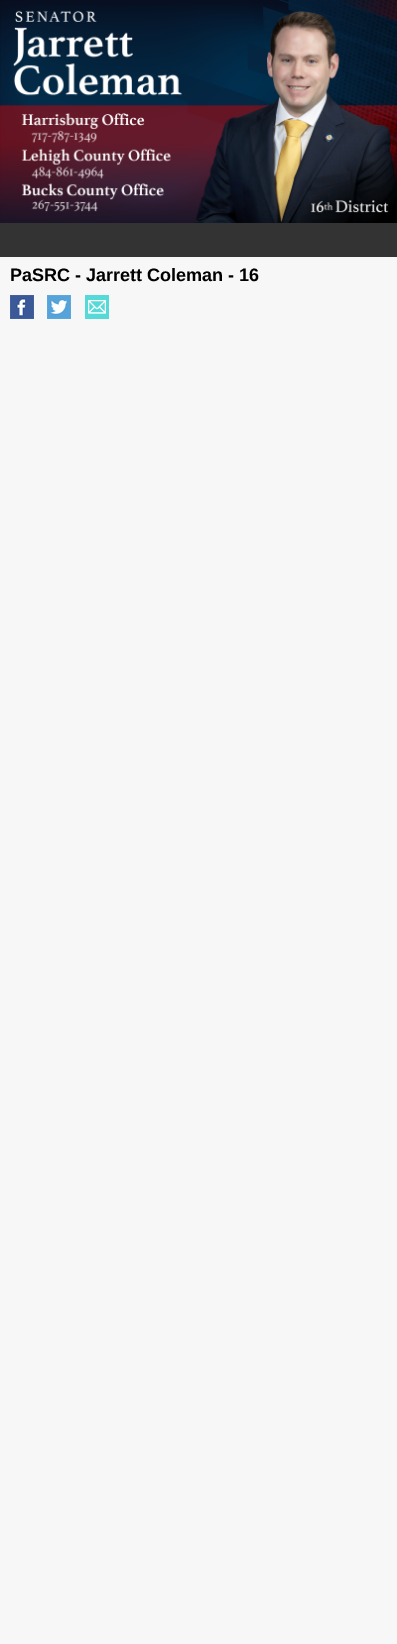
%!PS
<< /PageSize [397 1644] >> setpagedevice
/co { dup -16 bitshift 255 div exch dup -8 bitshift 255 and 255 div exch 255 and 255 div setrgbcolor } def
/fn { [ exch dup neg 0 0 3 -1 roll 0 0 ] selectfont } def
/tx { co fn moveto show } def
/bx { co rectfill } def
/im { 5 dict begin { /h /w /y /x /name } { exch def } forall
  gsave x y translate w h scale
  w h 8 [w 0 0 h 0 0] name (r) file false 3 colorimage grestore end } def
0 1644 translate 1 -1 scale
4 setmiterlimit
0 0 397 1644 16#F7F7F7 bx
(media/1.raw) 0 0 397 223 im
0 223 397 34 16#333333 bx
(media/2.raw) 10 295 24 24 im
(media/3.raw) 47 295 24 24 im
(media/4.raw) 85 295 24 24 im
(PaSRC - Jarrett Coleman - 16) 10 281 /LiberationSans-Bold 18 16#000000 tx
showpage
